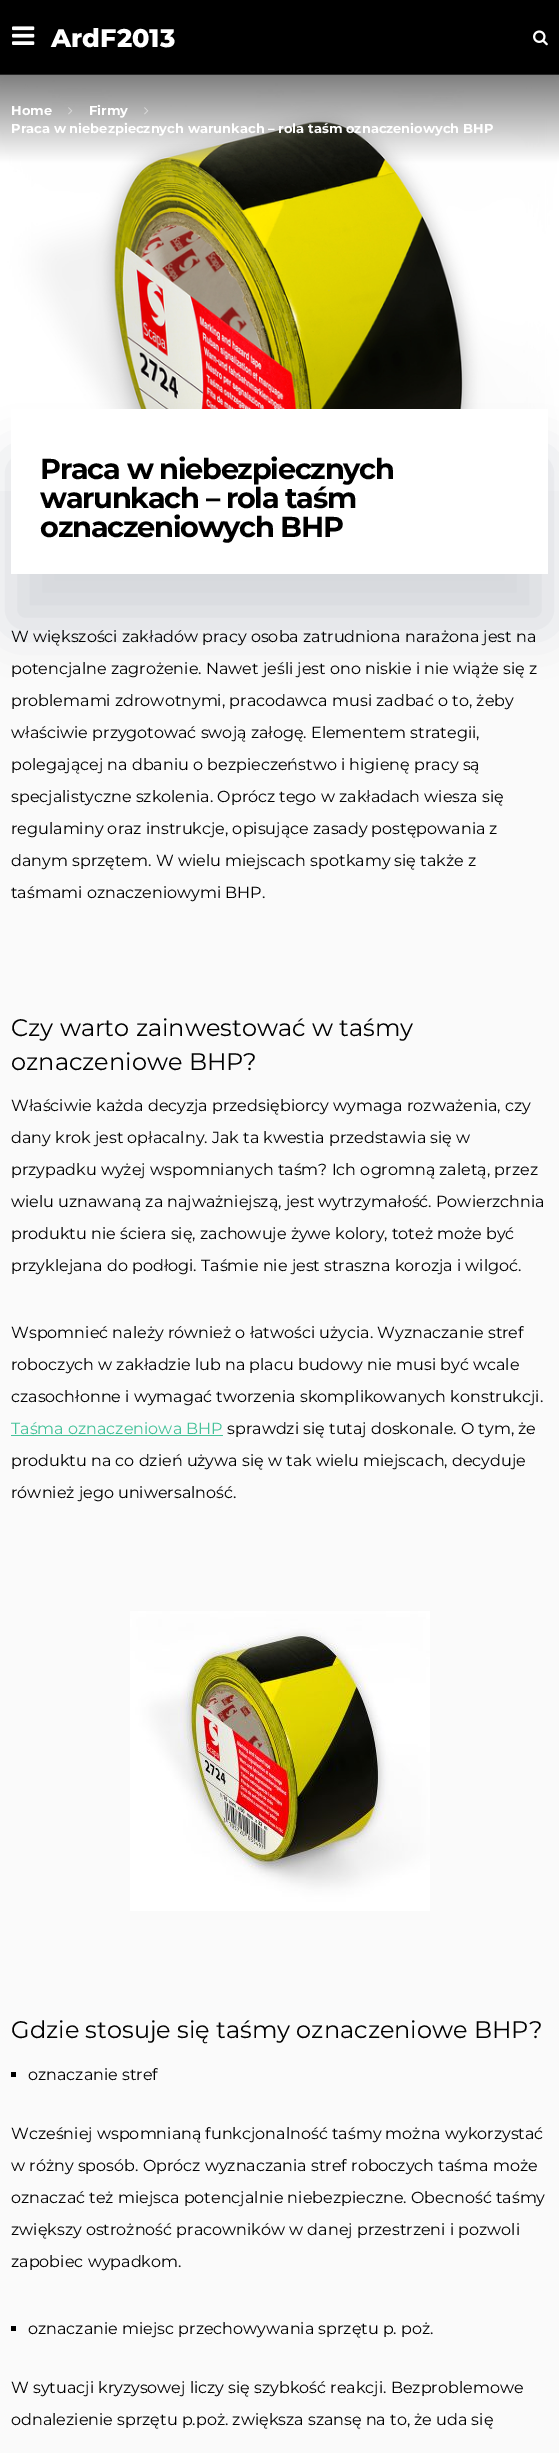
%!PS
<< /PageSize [559 2453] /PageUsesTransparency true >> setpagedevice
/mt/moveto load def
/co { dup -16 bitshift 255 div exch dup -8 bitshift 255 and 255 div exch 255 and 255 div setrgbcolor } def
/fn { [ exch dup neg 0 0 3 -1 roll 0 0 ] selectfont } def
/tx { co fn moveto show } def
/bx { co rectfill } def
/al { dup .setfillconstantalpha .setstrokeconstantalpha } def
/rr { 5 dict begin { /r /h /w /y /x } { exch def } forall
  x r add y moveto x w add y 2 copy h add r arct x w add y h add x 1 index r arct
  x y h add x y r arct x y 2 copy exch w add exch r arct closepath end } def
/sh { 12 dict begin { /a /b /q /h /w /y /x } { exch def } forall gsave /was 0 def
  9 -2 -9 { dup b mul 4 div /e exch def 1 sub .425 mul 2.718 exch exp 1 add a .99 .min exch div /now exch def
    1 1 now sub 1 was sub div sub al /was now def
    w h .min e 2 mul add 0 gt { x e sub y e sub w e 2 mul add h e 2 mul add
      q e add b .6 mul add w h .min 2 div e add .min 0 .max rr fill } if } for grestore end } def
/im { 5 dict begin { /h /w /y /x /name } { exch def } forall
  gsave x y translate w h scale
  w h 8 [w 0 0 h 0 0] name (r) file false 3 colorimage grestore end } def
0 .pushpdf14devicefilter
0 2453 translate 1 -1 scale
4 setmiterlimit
0 0 559 2453 16#FAFAFA bx
0 0 559 74 16#000000 bx
0 74 559 1 16#262626 bx
(media/1.raw) 12 26 23 19 im
(media/2.raw) 533 30 15 16 im
(media/3.raw) 0 75 559 416 im
(media/4.raw) 68 107 5 8 im
(media/5.raw) 144 107 5 8 im
16#051F39 co
11 459 537 165 0 25 .15 sh
11 409 537 165 16#FFFFFF bx
11 1435 212 1 16#44C299 bx
(media/6.raw) 130 1611 300 300 im
11 2072 5 5 16#000000 bx
11 2326 5 5 16#000000 bx
(ArdF2013) 51 47 /Montserrat-ExtraBold 25.5 16#FFFFFF tx
(Home) 11 115 /Montserrat-Bold 13 16#FFFFFF tx
(Firmy) 89 115 /Montserrat-Bold 13 16#FFFFFF tx
(Praca w niebezpiecznych warunkach – rola taśm oznaczeniowych BHP) 11 133 /Montserrat-Bold 13 16#FFFFFF tx
/Montserrat-Bold 28.75 fn
16#000000 co
40 479 mt -1.25 0 (Praca w niebezpiecznych) ashow
40 508 mt -1.25 0 (warunkach – rola taśm) ashow
40 537 mt -1.25 0 (oznaczeniowych BHP) ashow
(W większości zakładów pracy osoba zatrudniona narażona jest na) 11 642 /Montserrat-Regular 16 16#000000 tx
(potencjalne zagrożenie. Nawet jeśli jest ono niskie i nie wiąże się z) 11 674 /Montserrat-Regular 16 16#000000 tx
(problemami zdrowotnymi, pracodawca musi zadbać o to, żeby) 11 706 /Montserrat-Regular 16 16#000000 tx
(właściwie przygotować swoją załogę. Elementem strategii,) 11 738 /Montserrat-Regular 16 16#000000 tx
(polegającej na dbaniu o bezpieczeństwo i higienę pracy są) 11 770 /Montserrat-Regular 16 16#000000 tx
(specjalistyczne szkolenia. Oprócz tego w zakładach wiesza się) 11 802 /Montserrat-Regular 16 16#000000 tx
(regulaminy oraz instrukcje, opisujące zasady postępowania z) 11 834 /Montserrat-Regular 16 16#000000 tx
(danym sprzętem. W wielu miejscach spotkamy się także z) 11 866 /Montserrat-Regular 16 16#000000 tx
(taśmami oznaczeniowymi BHP.) 11 898 /Montserrat-Regular 16 16#000000 tx
(Czy warto zainwestować w taśmy) 11 1036 /Montserrat-Regular 24 16#000000 tx
(oznaczeniowe BHP?) 11 1070 /Montserrat-Regular 24 16#000000 tx
(Właściwie każda decyzja przedsiębiorcy wymaga rozważenia, czy) 11 1111 /Montserrat-Regular 16 16#000000 tx
(dany krok jest opłacalny. Jak ta kwestia przedstawia się w) 11 1143 /Montserrat-Regular 16 16#000000 tx
(przypadku wyżej wspomnianych taśm? Ich ogromną zaletą, przez) 11 1175 /Montserrat-Regular 16 16#000000 tx
(wielu uznawaną za najważniejszą, jest wytrzymałość. Powierzchnia) 11 1207 /Montserrat-Regular 16 16#000000 tx
(produktu nie ściera się, zachowuje żywe kolory, toteż może być) 11 1239 /Montserrat-Regular 16 16#000000 tx
(przyklejana do podłogi. Taśmie nie jest straszna korozja i wilgoć.) 11 1271 /Montserrat-Regular 16 16#000000 tx
(Wspomnieć należy również o łatwości użycia. Wyznaczanie stref) 11 1338 /Montserrat-Regular 16 16#000000 tx
(roboczych w zakładzie lub na placu budowy nie musi być wcale) 11 1370 /Montserrat-Regular 16 16#000000 tx
(czasochłonne i wymagać tworzenia skomplikowanych konstrukcji.) 11 1402 /Montserrat-Regular 16 16#000000 tx
(Taśma oznaczeniowa BHP) 11 1434 /Montserrat-Regular 16 16#44C299 tx
(sprawdzi się tutaj doskonale. O tym, że) 227 1434 /Montserrat-Regular 16 16#000000 tx
(produktu na co dzień używa się w tak wielu miejscach, decyduje) 11 1466 /Montserrat-Regular 16 16#000000 tx
(również jego uniwersalność.) 11 1498 /Montserrat-Regular 16 16#000000 tx
(Gdzie stosuje się taśmy oznaczeniowe BHP?) 11 2038 /Montserrat-Regular 24 16#000000 tx
(oznaczanie stref) 28 2080 /Montserrat-Regular 16 16#000000 tx
(Wcześniej wspomnianą funkcjonalność taśmy można wykorzystać) 11 2139 /Montserrat-Regular 16 16#000000 tx
(w różny sposób. Oprócz wyznaczania stref roboczych taśma może) 11 2171 /Montserrat-Regular 16 16#000000 tx
(oznaczać też miejsca potencjalnie niebezpieczne. Obecność taśmy) 11 2203 /Montserrat-Regular 16 16#000000 tx
(zwiększy ostrożność pracowników w danej przestrzeni i pozwoli) 11 2235 /Montserrat-Regular 16 16#000000 tx
(zapobiec wypadkom.) 11 2267 /Montserrat-Regular 16 16#000000 tx
(oznaczanie miejsc przechowywania sprzętu p. poż.) 28 2334 /Montserrat-Regular 16 16#000000 tx
(W sytuacji kryzysowej liczy się szybkość reakcji. Bezproblemowe) 11 2393 /Montserrat-Regular 16 16#000000 tx
(odnalezienie sprzętu p.poż. zwiększa szansę na to, że uda się) 11 2425 /Montserrat-Regular 16 16#000000 tx
.poppdf14devicefilter showpage
